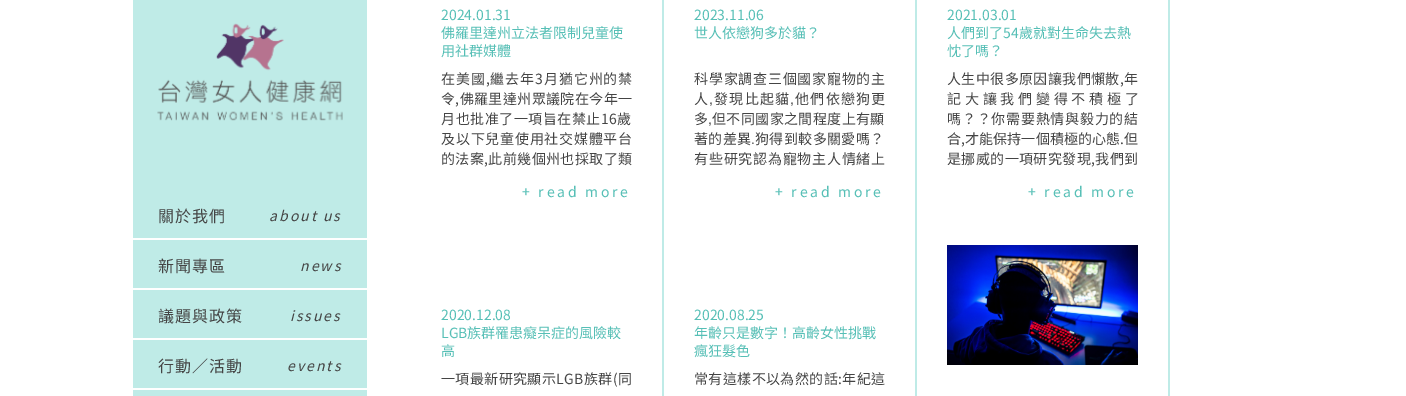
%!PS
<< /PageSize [1406 396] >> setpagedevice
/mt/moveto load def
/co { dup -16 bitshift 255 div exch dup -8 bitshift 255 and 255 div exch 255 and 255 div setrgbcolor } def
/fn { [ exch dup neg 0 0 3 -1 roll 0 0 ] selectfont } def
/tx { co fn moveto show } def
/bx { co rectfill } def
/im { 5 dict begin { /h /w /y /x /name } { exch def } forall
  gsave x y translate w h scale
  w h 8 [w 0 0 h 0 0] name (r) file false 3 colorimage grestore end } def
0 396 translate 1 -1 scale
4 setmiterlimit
0 0 1406 396 16#FFFFFF bx
133 0 234 396 16#BFEBE7 bx
(media/1.raw) 157 23 186 98 im
133 238 234 2 16#FFFFFF bx
133 288 234 2 16#FFFFFF bx
133 338 234 2 16#FFFFFF bx
133 388 234 2 16#FFFFFF bx
662 0 2 396 16#BFEBE7 bx
915 0 2 396 16#BFEBE7 bx
1168 0 2 396 16#BFEBE7 bx
(media/2.raw) 947 245 191 120 im
/NotoSansTC-Thin 16 fn
16#444444 co
158 222 mt 1 0 (關於我們) ashow
/NotoSansTC-ThinItalic 14 fn
269 221 mt 2 0 (about us) ashow
/NotoSansTC-Thin 16 fn
158 272 mt 1 0 (新聞專區) ashow
/NotoSansTC-ThinItalic 14 fn
300 271 mt 2 0 (news) ashow
/NotoSansTC-Thin 16 fn
158 322 mt 1 0 (議題與政策) ashow
/NotoSansTC-ThinItalic 14 fn
290 321 mt 2 0 (issues) ashow
/NotoSansTC-Thin 16 fn
158 372 mt 1 0 (行動／活動) ashow
/NotoSansTC-ThinItalic 14 fn
287 371 mt 2 0 (events) ashow
(2024.01.31) 441 20 /NotoSansTC-Thin 14 16#56BFB6 tx
(佛羅里達州立法者限制兒童使) 441 38 /NotoSansTC-Thin 14 16#56BFB6 tx
(用社群媒體) 441 56 /NotoSansTC-Thin 14 16#56BFB6 tx
16#444444 co
441 84 mt .9 0 (在美國,繼去年3月猶它州的禁) ashow
441 104 mt .4 0 (令,佛羅里達州眾議院在今年一) ashow
441 124 mt .5 0 (月也批准了一項旨在禁止16歲) ashow
441 144 mt .75 0 (及以下兒童使用社交媒體平台) ashow
441 164 mt .4 0 (的法案,此前幾個州也採取了類) ashow
16#56BFB6 co
522 197 mt 2.75 0 (+ read more) ashow
(2023.11.06) 694 20 /NotoSansTC-Thin 14 16#56BFB6 tx
(世人依戀狗多於貓？) 694 38 /NotoSansTC-Thin 14 16#56BFB6 tx
16#444444 co
694 84 mt .75 0 (科學家調查三個國家寵物的主) ashow
694 104 mt 1.25 0 (人) ashow
/LiberationSans-Regular 14 fn
709 104 mt 1.25 0 (,) ashow
/NotoSansTC-Thin 14 fn
714 104 mt 1.25 0 (發現比起貓) ashow
/LiberationSans-Regular 14 fn
790 104 mt 1.25 0 (,) ashow
/NotoSansTC-Thin 14 fn
795 104 mt 1.25 0 (他們依戀狗更) ashow
694 124 mt .4 0 (多) ashow
/LiberationSans-Regular 14 fn
708 124 mt .4 0 (,) ashow
/NotoSansTC-Thin 14 fn
712 124 mt .4 0 (但不同國家之間程度上有顯) ashow
694 144 mt .4 0 (著的差異) ashow
/LiberationSans-Regular 14 fn
751 144 mt .4 0 (.) ashow
/NotoSansTC-Thin 14 fn
755 144 mt .4 0 (狗得到較多關愛嗎？) ashow
694 164 mt .75 0 (有些研究認為寵物主人情緒上) ashow
16#56BFB6 co
775 197 mt 2.75 0 (+ read more) ashow
(2021.03.01) 947 20 /NotoSansTC-Thin 14 16#56BFB6 tx
(人們到了54歲就對生命失去熱) 947 38 /NotoSansTC-Thin 14 16#56BFB6 tx
(忱了嗎？) 947 56 /NotoSansTC-Thin 14 16#56BFB6 tx
16#444444 co
947 84 mt .4 0 (人生中很多原因讓我們懶散,年) ashow
947 104 mt 3.75 0 (記大讓我們變得不積極了) ashow
947 124 mt .75 0 (嗎？？你需要熱情與毅力的結) ashow
947 144 mt .1 0 (合,才能保持一個積極的心態.但) ashow
947 164 mt .4 0 (是挪威的一項研究發現,我們到) ashow
16#56BFB6 co
1028 197 mt 2.75 0 (+ read more) ashow
(2020.12.08) 441 320 /NotoSansTC-Thin 14 16#56BFB6 tx
(LGB族群罹患癡呆症的風險較) 441 338 /NotoSansTC-Thin 14 16#56BFB6 tx
(高) 441 356 /NotoSansTC-Thin 14 16#56BFB6 tx
16#444444 co
441 384 mt .4 0 (一項最新研究顯示LGB族群\(同) ashow
(2020.08.25) 694 320 /NotoSansTC-Thin 14 16#56BFB6 tx
(年齡只是數字！高齡女性挑戰) 694 338 /NotoSansTC-Thin 14 16#56BFB6 tx
(瘋狂髮色) 694 356 /NotoSansTC-Thin 14 16#56BFB6 tx
16#444444 co
694 384 mt .4 0 (常有這樣不以為然的話:年紀這) ashow
showpage
